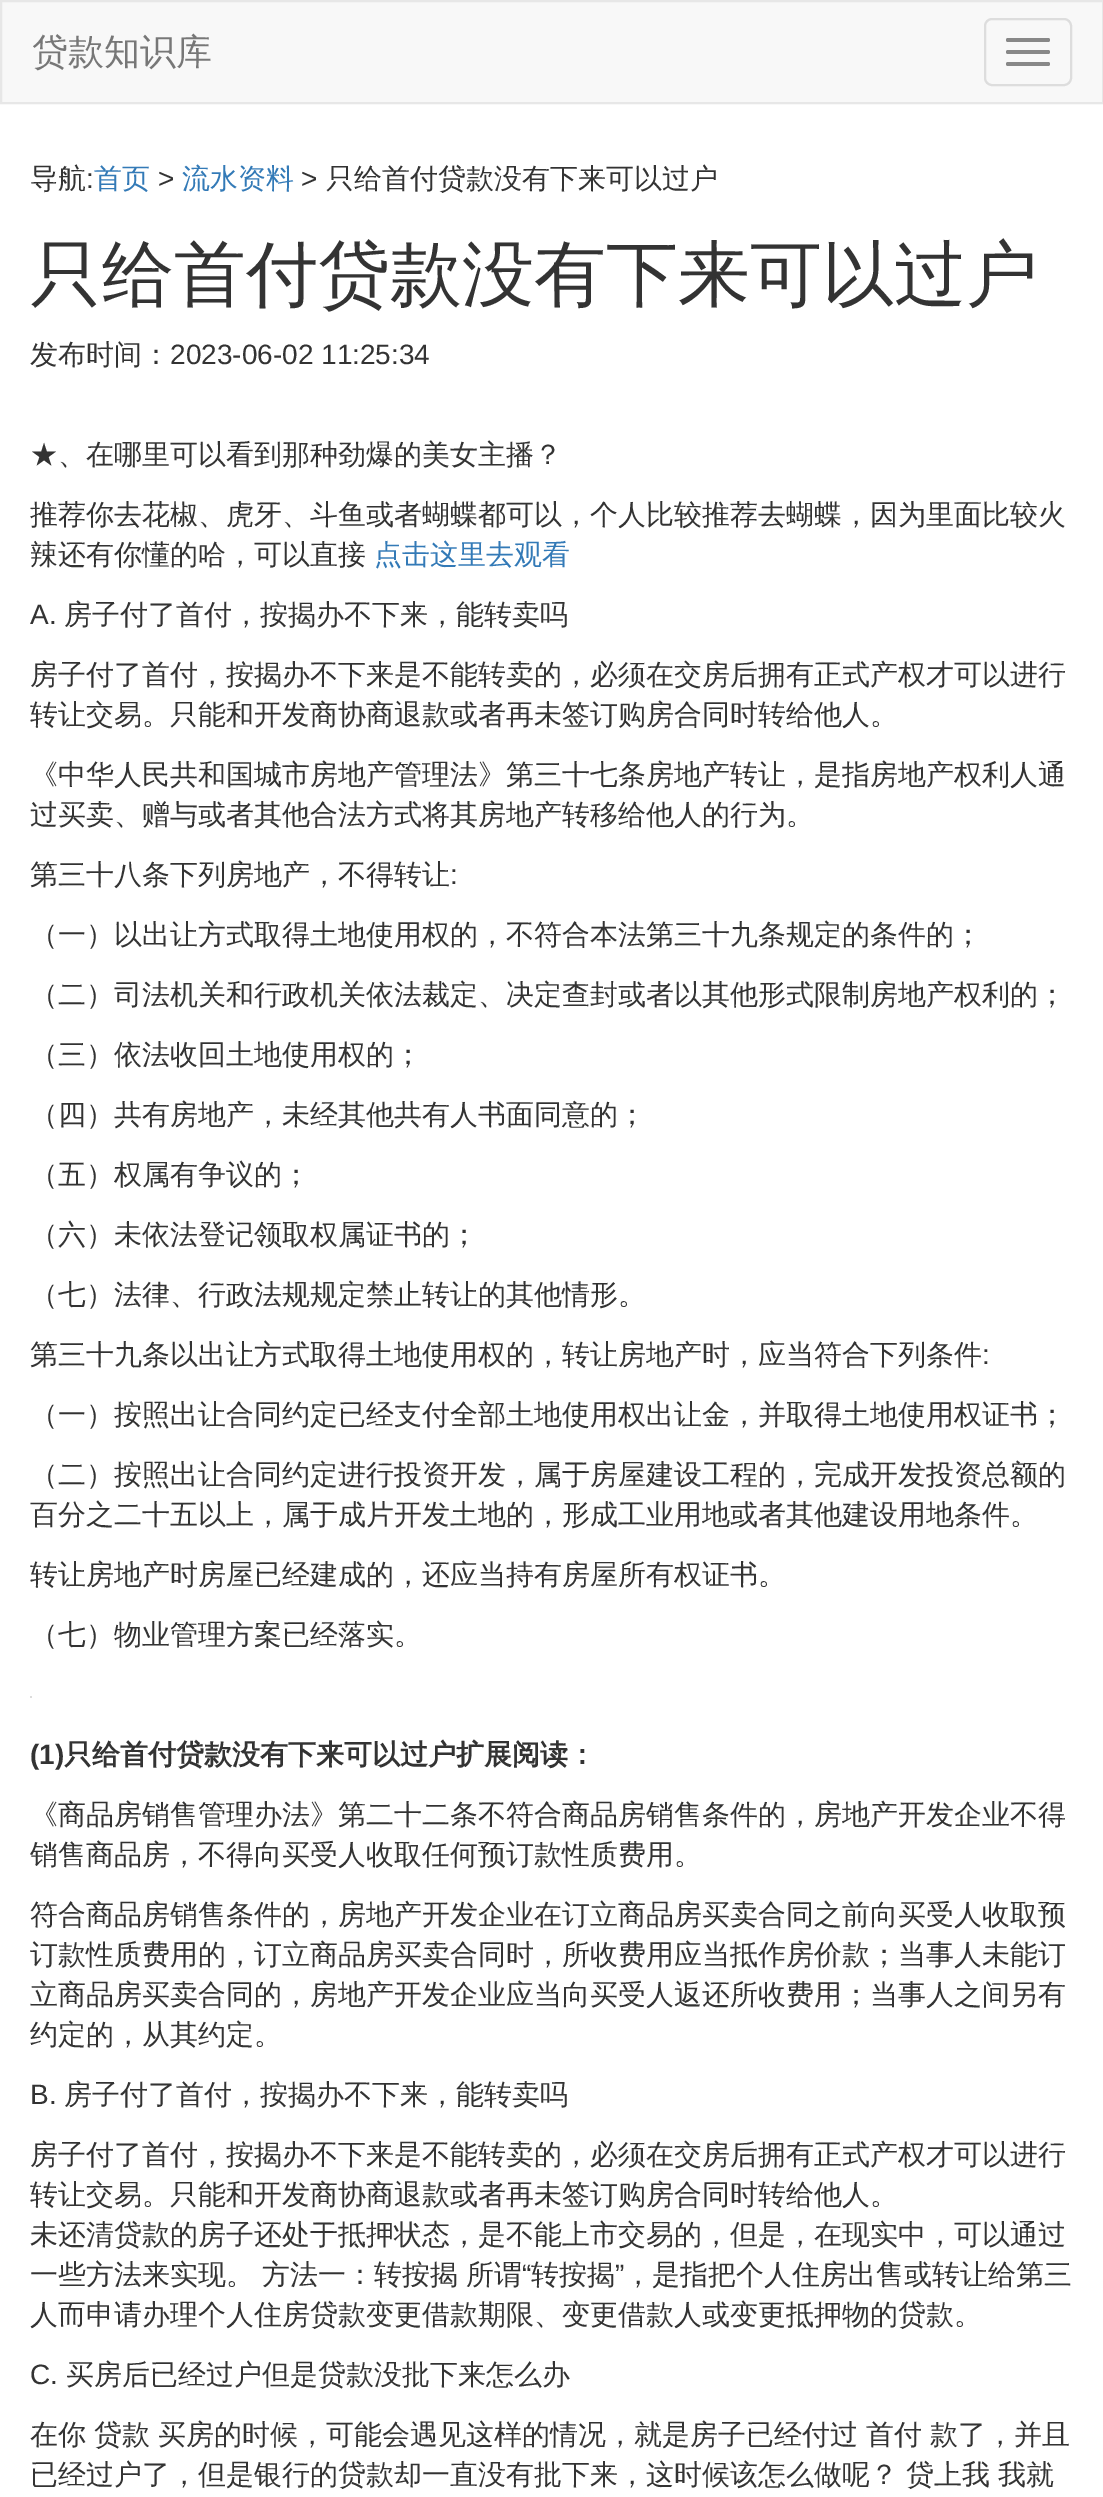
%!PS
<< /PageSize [1103 2497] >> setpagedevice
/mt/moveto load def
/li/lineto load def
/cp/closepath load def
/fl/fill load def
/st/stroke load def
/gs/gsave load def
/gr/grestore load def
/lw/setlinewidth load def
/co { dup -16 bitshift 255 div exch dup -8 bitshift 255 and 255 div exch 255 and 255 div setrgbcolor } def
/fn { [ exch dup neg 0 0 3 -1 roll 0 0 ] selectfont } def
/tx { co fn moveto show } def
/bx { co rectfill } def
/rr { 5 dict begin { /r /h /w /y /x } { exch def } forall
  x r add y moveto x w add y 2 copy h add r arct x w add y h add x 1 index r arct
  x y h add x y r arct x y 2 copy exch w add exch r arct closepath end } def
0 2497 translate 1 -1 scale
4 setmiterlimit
0 0 1103 2497 16#FFFFFF bx
16#F8F8F8 co
1 1 mt 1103 1 li 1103 103 li 1 103 li cp gs fl gr
16#E7E7E7 co
2 lw
st
16#DDDDDD co
985 19 86 66 7 rr st
16#888888 co
1006 38 44 4 2 rr fl
1006 50 44 4 2 rr fl
1006 62 44 4 2 rr fl
30 1696 2 2 16#DCDCDC bx
(贷款知识库) 32 64 /WenQuanYiZenHei-Medium 36 16#777777 tx
(导航) 30 188 /WenQuanYiZenHei-Medium 28 16#333333 tx
(:) 86 188 /LiberationSans-Regular 28 16#333333 tx
(首页) 94 188 /WenQuanYiZenHei-Medium 28 16#337AB7 tx
(>) 158 188 /LiberationSans-Regular 28 16#333333 tx
(流水资料) 182 188 /WenQuanYiZenHei-Medium 28 16#337AB7 tx
(>) 301 188 /LiberationSans-Regular 28 16#333333 tx
(只给首付贷款没有下来可以过户) 326 188 /WenQuanYiZenHei-Medium 28 16#333333 tx
(只给首付贷款没有下来可以过户) 30 299 /WenQuanYiZenHei-Medium 72 16#333333 tx
(发布时间：) 30 364 /WenQuanYiZenHei-Medium 28 16#333333 tx
(2023-06-02 11:25:34) 170 364 /LiberationSans-Regular 28 16#333333 tx
(★、在哪里可以看到那种劲爆的美女主播？) 30 464 /WenQuanYiZenHei-Medium 28 16#333333 tx
(推荐你去花椒、虎牙、斗鱼或者蝴蝶都可以，个人比较推荐去蝴蝶，因为里面比较火) 30 524 /WenQuanYiZenHei-Medium 28 16#333333 tx
(辣还有你懂的哈，可以直接) 30 564 /WenQuanYiZenHei-Medium 28 16#333333 tx
(点击这里去观看) 374 564 /WenQuanYiZenHei-Medium 28 16#337AB7 tx
(A.) 30 624 /LiberationSans-Regular 28 16#333333 tx
(房子付了首付，按揭办不下来，能转卖吗) 64 624 /WenQuanYiZenHei-Medium 28 16#333333 tx
(房子付了首付，按揭办不下来是不能转卖的，必须在交房后拥有正式产权才可以进行) 30 684 /WenQuanYiZenHei-Medium 28 16#333333 tx
(转让交易。只能和开发商协商退款或者再未签订购房合同时转给他人。) 30 724 /WenQuanYiZenHei-Medium 28 16#333333 tx
(《中华人民共和国城市房地产管理法》第三十七条房地产转让，是指房地产权利人通) 30 784 /WenQuanYiZenHei-Medium 28 16#333333 tx
(过买卖、赠与或者其他合法方式将其房地产转移给他人的行为。) 30 824 /WenQuanYiZenHei-Medium 28 16#333333 tx
(第三十八条下列房地产，不得转让) 30 884 /WenQuanYiZenHei-Medium 28 16#333333 tx
(:) 450 884 /LiberationSans-Regular 28 16#333333 tx
(（一）以出让方式取得土地使用权的，不符合本法第三十九条规定的条件的；) 30 944 /WenQuanYiZenHei-Medium 28 16#333333 tx
(（二）司法机关和行政机关依法裁定、决定查封或者以其他形式限制房地产权利的；) 30 1004 /WenQuanYiZenHei-Medium 28 16#333333 tx
(（三）依法收回土地使用权的；) 30 1064 /WenQuanYiZenHei-Medium 28 16#333333 tx
(（四）共有房地产，未经其他共有人书面同意的；) 30 1124 /WenQuanYiZenHei-Medium 28 16#333333 tx
(（五）权属有争议的；) 30 1184 /WenQuanYiZenHei-Medium 28 16#333333 tx
(（六）未依法登记领取权属证书的；) 30 1244 /WenQuanYiZenHei-Medium 28 16#333333 tx
(（七）法律、行政法规规定禁止转让的其他情形。) 30 1304 /WenQuanYiZenHei-Medium 28 16#333333 tx
(第三十九条以出让方式取得土地使用权的，转让房地产时，应当符合下列条件) 30 1364 /WenQuanYiZenHei-Medium 28 16#333333 tx
(:) 982 1364 /LiberationSans-Regular 28 16#333333 tx
(（一）按照出让合同约定已经支付全部土地使用权出让金，并取得土地使用权证书；) 30 1424 /WenQuanYiZenHei-Medium 28 16#333333 tx
(（二）按照出让合同约定进行投资开发，属于房屋建设工程的，完成开发投资总额的) 30 1484 /WenQuanYiZenHei-Medium 28 16#333333 tx
(百分之二十五以上，属于成片开发土地的，形成工业用地或者其他建设用地条件。) 30 1524 /WenQuanYiZenHei-Medium 28 16#333333 tx
(转让房地产时房屋已经建成的，还应当持有房屋所有权证书。) 30 1584 /WenQuanYiZenHei-Medium 28 16#333333 tx
(（七）物业管理方案已经落实。) 30 1644 /WenQuanYiZenHei-Medium 28 16#333333 tx
(\(1\)) 30 1764 /LiberationSans-Bold 28 16#333333 tx
(只给首付贷款没有下来可以过户扩展阅读：) 64 1764 /WenQuanYiZenHei-Bold 28 16#333333 tx
(《商品房销售管理办法》第二十二条不符合商品房销售条件的，房地产开发企业不得) 30 1824 /WenQuanYiZenHei-Medium 28 16#333333 tx
(销售商品房，不得向买受人收取任何预订款性质费用。) 30 1864 /WenQuanYiZenHei-Medium 28 16#333333 tx
(符合商品房销售条件的，房地产开发企业在订立商品房买卖合同之前向买受人收取预) 30 1924 /WenQuanYiZenHei-Medium 28 16#333333 tx
(订款性质费用的，订立商品房买卖合同时，所收费用应当抵作房价款；当事人未能订) 30 1964 /WenQuanYiZenHei-Medium 28 16#333333 tx
(立商品房买卖合同的，房地产开发企业应当向买受人返还所收费用；当事人之间另有) 30 2004 /WenQuanYiZenHei-Medium 28 16#333333 tx
(约定的，从其约定。) 30 2044 /WenQuanYiZenHei-Medium 28 16#333333 tx
(B.) 30 2104 /LiberationSans-Regular 28 16#333333 tx
(房子付了首付，按揭办不下来，能转卖吗) 64 2104 /WenQuanYiZenHei-Medium 28 16#333333 tx
(房子付了首付，按揭办不下来是不能转卖的，必须在交房后拥有正式产权才可以进行) 30 2164 /WenQuanYiZenHei-Medium 28 16#333333 tx
(转让交易。只能和开发商协商退款或者再未签订购房合同时转给他人。) 30 2204 /WenQuanYiZenHei-Medium 28 16#333333 tx
(未还清贷款的房子还处于抵押状态，是不能上市交易的，但是，在现实中，可以通过) 30 2244 /WenQuanYiZenHei-Medium 28 16#333333 tx
30 2284 mt -.5 0 32 (一些方法来实现。 方法一：转按揭 所谓) widthshow
(“) 522 2284 /LiberationSans-Regular 28 16#333333 tx
(转按揭) 531 2284 /WenQuanYiZenHei-Medium 28 16#333333 tx
(”) 615 2284 /LiberationSans-Regular 28 16#333333 tx
(，是指把个人住房出售或转让给第三) 624 2284 /WenQuanYiZenHei-Medium 28 16#333333 tx
(人而申请办理个人住房贷款变更借款期限、变更借款人或变更抵押物的贷款。) 30 2324 /WenQuanYiZenHei-Medium 28 16#333333 tx
(C.) 30 2384 /LiberationSans-Regular 28 16#333333 tx
(买房后已经过户但是贷款没批下来怎么办) 66 2384 /WenQuanYiZenHei-Medium 28 16#333333 tx
30 2444 mt -.5 0 32 (在你 贷款 买房的时候，可能会遇见这样的情况，就是房子已经付过 首付 款了，并且) widthshow
(已经过户了，但是银行的贷款却一直没有批下来，这时候该怎么做呢？) 30 2484 /WenQuanYiZenHei-Medium 28 16#333333 tx
(贷上我) 906 2484 /WenQuanYiZenHei-Medium 28 16#333333 tx
(我就) 998 2484 /WenQuanYiZenHei-Medium 28 16#333333 tx
showpage
